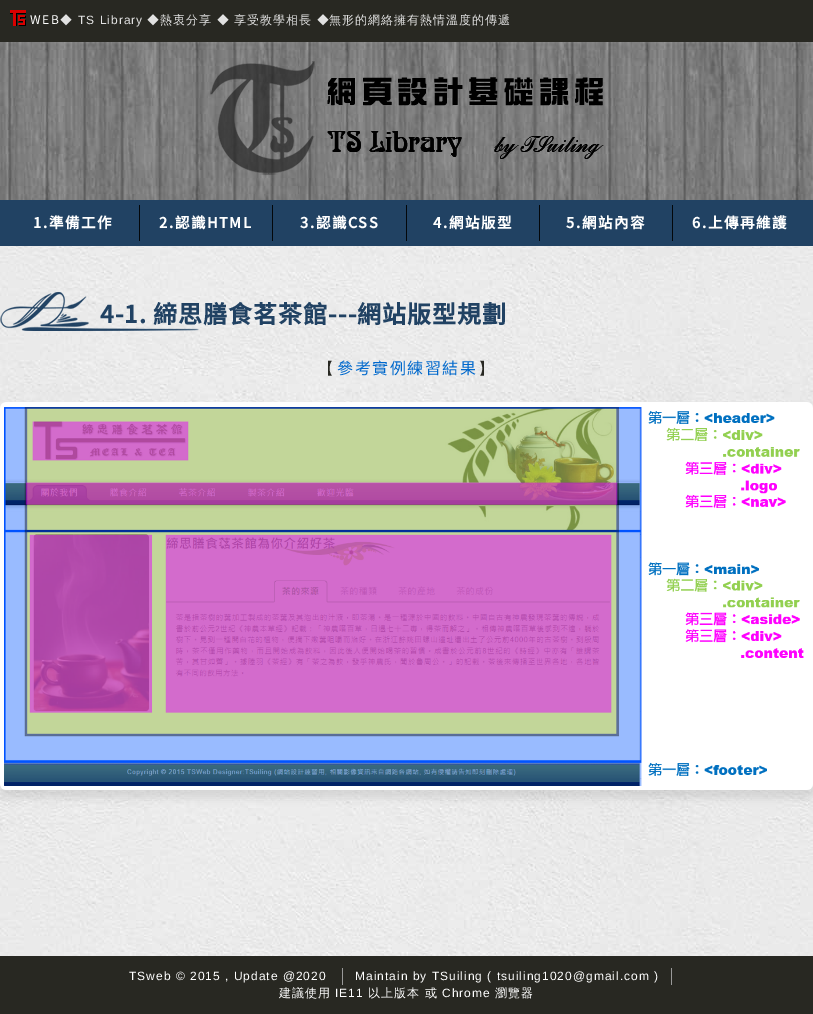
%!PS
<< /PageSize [813 1014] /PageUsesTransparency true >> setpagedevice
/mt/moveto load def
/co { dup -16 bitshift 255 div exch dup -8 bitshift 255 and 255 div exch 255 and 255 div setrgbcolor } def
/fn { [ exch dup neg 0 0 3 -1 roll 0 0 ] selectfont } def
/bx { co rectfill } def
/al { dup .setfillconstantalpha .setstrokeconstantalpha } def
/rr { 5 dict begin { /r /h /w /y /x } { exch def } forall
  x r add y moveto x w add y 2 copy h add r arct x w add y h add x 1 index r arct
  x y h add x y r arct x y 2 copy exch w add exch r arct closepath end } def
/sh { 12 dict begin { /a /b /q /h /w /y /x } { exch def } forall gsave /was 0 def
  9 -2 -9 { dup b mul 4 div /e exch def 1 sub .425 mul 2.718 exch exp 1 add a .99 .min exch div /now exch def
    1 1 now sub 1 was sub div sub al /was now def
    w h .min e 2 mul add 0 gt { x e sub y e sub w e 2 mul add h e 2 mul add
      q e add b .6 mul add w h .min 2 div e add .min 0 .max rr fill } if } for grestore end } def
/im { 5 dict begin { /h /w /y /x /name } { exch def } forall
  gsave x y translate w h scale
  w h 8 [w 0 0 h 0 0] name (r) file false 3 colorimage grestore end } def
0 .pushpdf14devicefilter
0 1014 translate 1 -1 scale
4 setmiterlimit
0 0 813 1014 16#FFFFFF bx
(media/1.raw) 0 246 813 710 im
0 0 813 42 16#282822 bx
(media/2.raw) 10 10 16 16 im
(media/3.raw) 0 42 813 158 im
(media/4.raw) 210 61 394 114 im
0 200 813 46 16#214263 bx
139 205 1 36 16#03070A bx
272 205 1 36 16#03070A bx
406 205 1 36 16#03070A bx
539 205 1 36 16#03070A bx
672 205 1 36 16#03070A bx
(media/5.raw) 0 292 199 39 im
16#000000 co
0 410 813 388 6 4 .1 sh
(media/6.raw) 0 402 813 388 im
0 956 813 58 16#282822 bx
671 968 1 17 16#999999 bx
342 968 1 17 16#999999 bx
/NotoSansTC-Thin 12 fn
16#FFFFFF co
30 24 mt 1.5 0 (WEB) ashow
/WenQuanYiZenHei-Medium 12 fn
16#E2E2E2 co
60 24 mt 1 0 (◆) ashow
/LiberationSans-Regular 12 fn
78 24 mt 1 0 (TS Library) ashow
/WenQuanYiZenHei-Medium 12 fn
147 24 mt 1 0 (◆) ashow
160 24 mt 1 0 (熱衷分享 ◆ 享受教學相長 ◆) ashow
329 24 mt 1 0 (無形的網絡擁有熱情溫度的傳遞) ashow
/NotoSansTC-Bold 14.5 fn
16#FFFFFF co
33 228 mt 1.5 0 (1.準備工作) ashow
159 228 mt 1.5 0 (2.認識HTML) ashow
300 228 mt 1.5 0 (3.認識CSS) ashow
433 228 mt 1.5 0 (4.網站版型) ashow
566 228 mt 1.5 0 (5.網站內容) ashow
692 228 mt 1.5 0 (6.上傳再維護) ashow
/NotoSansTC-Bold 24 fn
16#214263 co
100 323 mt 1 0 (4-1. 締思膳食茗茶館---網站版型規劃) ashow
/WenQuanYiZenHei-Medium 16 fn
16#282822 co
318 374 mt 1 0 (【) ashow
/NotoSansTC-Thin 16 fn
16#0068CC co
337 374 mt 1.5 0 (參考實例練習結果) ashow
/WenQuanYiZenHei-Medium 16 fn
16#282822 co
478 374 mt 1 0 (】) ashow
/LiberationSans-Regular 12 fn
16#FFFFFF co
129 980 mt 1 0 (TSweb © 2015 , Update @2020) ashow
355 980 mt 1 0 (Maintain by TSuiling \( tsuiling1020@gmail.com \)) ashow
/WenQuanYiZenHei-Medium 12 fn
279 997 mt 1 0 (建議使用) ashow
/LiberationSans-Regular 12 fn
335 997 mt 1 0 (IE11) ashow
/WenQuanYiZenHei-Medium 12 fn
368 997 mt 1 0 (以上版本 或) ashow
/LiberationSans-Regular 12 fn
442 997 mt 1 0 (Chrome) ashow
/WenQuanYiZenHei-Medium 12 fn
495 997 mt 1 0 (瀏覽器) ashow
.poppdf14devicefilter showpage
